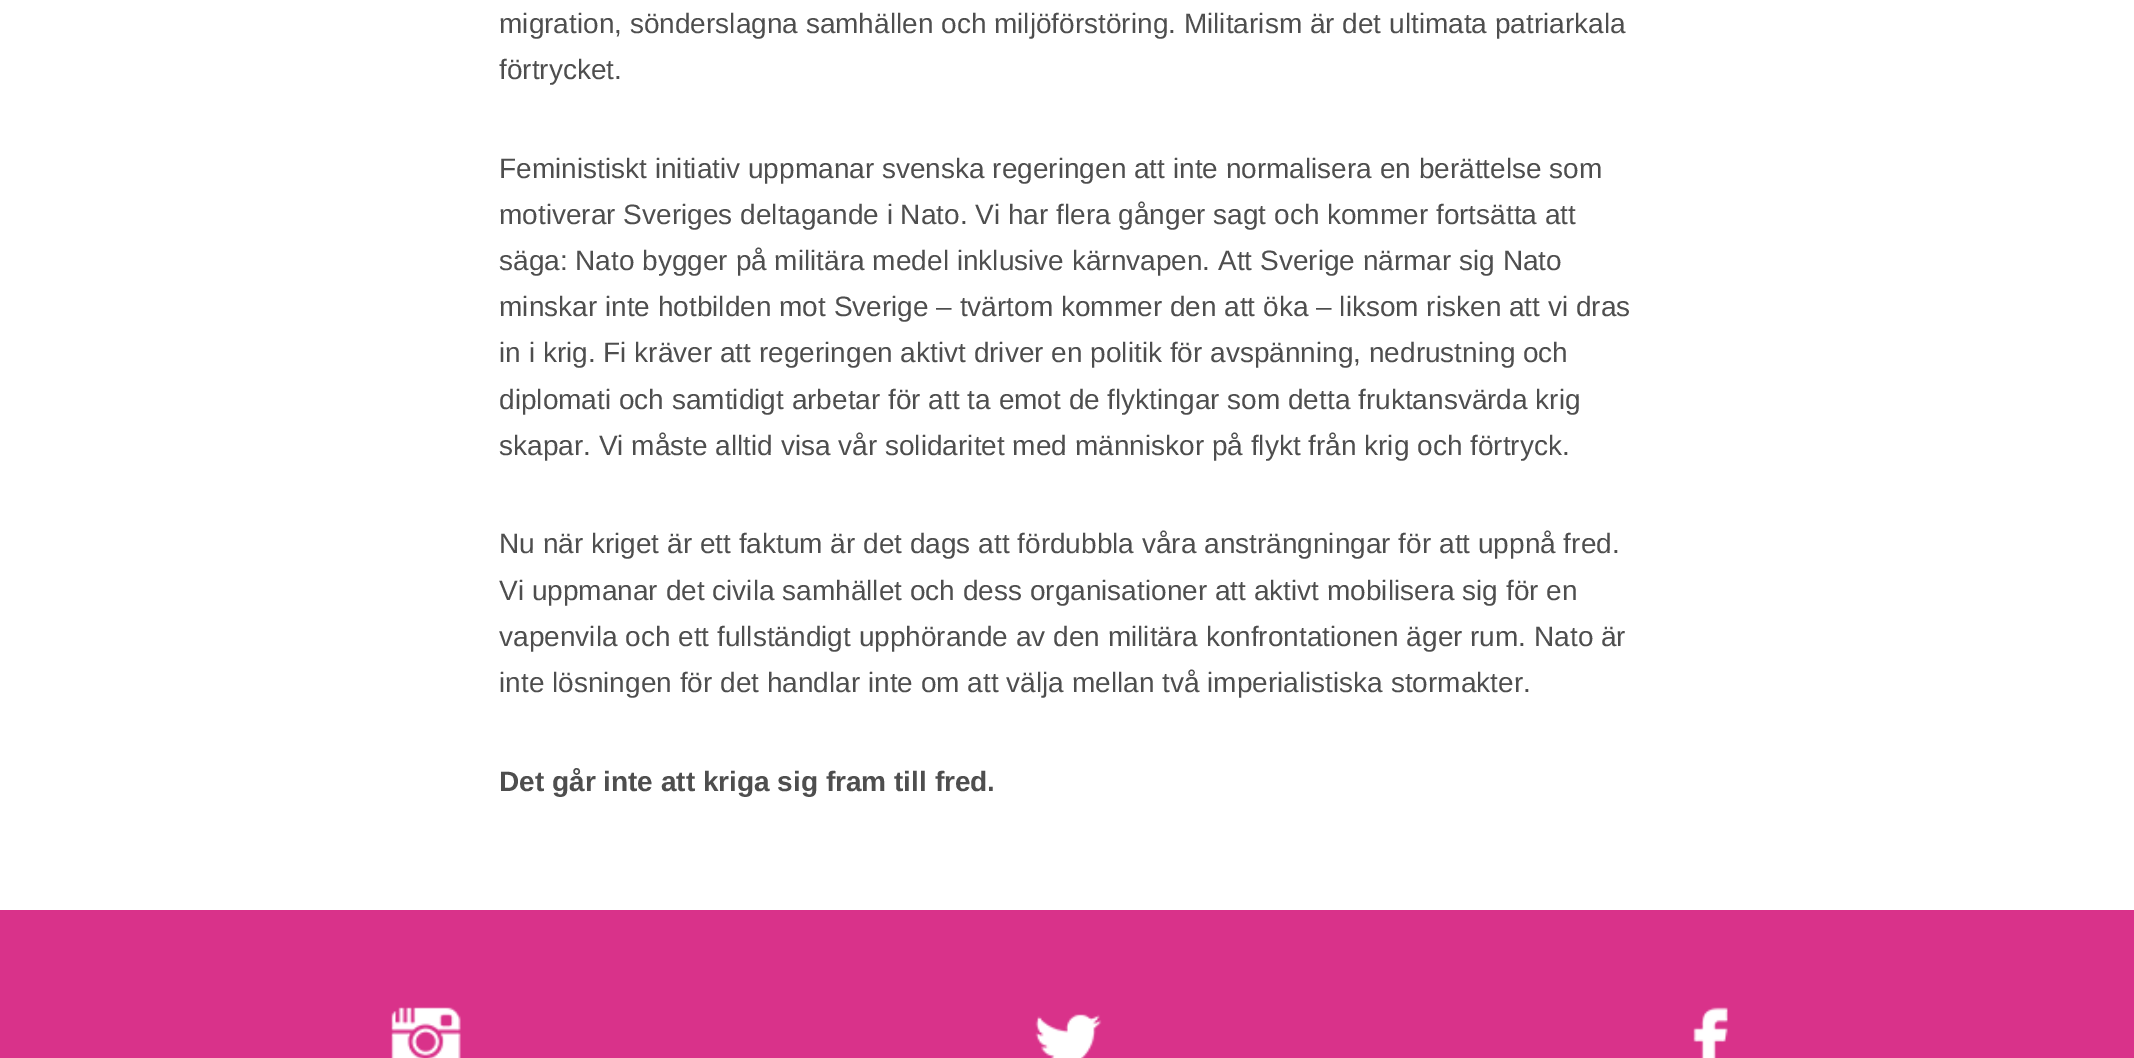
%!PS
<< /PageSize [2134 1058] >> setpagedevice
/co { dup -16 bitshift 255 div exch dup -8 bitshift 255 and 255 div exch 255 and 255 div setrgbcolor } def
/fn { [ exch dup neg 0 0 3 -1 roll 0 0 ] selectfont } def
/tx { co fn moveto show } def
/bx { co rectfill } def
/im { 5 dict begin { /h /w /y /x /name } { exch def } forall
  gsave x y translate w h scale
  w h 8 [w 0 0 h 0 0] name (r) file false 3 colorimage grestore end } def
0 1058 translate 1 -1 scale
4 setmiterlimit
0 0 2134 1058 16#FFFFFF bx
0 910 2134 148 16#D9328A bx
(media/1.raw) 391 1007 70 51 im
(media/2.raw) 1035 1014 67 44 im
(media/3.raw) 1693 1007 35 51 im
(migration, sönderslagna samhällen och miljöförstöring. Militarism är det ultimata patriarkala) 499 33 /LiberationSans-Regular 28 16#4E4E4E tx
(förtrycket.) 499 79 /LiberationSans-Regular 28 16#4E4E4E tx
(Feministiskt initiativ uppmanar svenska regeringen att inte normalisera en berättelse som) 499 178 /LiberationSans-Regular 28 16#4E4E4E tx
(motiverar Sveriges deltagande i Nato. Vi har flera gånger sagt och kommer fortsätta att) 499 224 /LiberationSans-Regular 28 16#4E4E4E tx
(säga: Nato bygger på militära medel inklusive kärnvapen. Att Sverige närmar sig Nato) 499 270 /LiberationSans-Regular 28 16#4E4E4E tx
(minskar inte hotbilden mot Sverige – tvärtom kommer den att öka – liksom risken att vi dras) 499 316 /LiberationSans-Regular 28 16#4E4E4E tx
(in i krig. Fi kräver att regeringen aktivt driver en politik för avspänning, nedrustning och) 499 362 /LiberationSans-Regular 28 16#4E4E4E tx
(diplomati och samtidigt arbetar för att ta emot de flyktingar som detta fruktansvärda krig) 499 409 /LiberationSans-Regular 28 16#4E4E4E tx
(skapar. Vi måste alltid visa vår solidaritet med människor på flykt från krig och förtryck.) 499 455 /LiberationSans-Regular 28 16#4E4E4E tx
(Nu när kriget är ett faktum är det dags att fördubbla våra ansträngningar för att uppnå fred.) 499 553 /LiberationSans-Regular 28 16#4E4E4E tx
(Vi uppmanar det civila samhället och dess organisationer att aktivt mobilisera sig för en) 499 600 /LiberationSans-Regular 28 16#4E4E4E tx
(vapenvila och ett fullständigt upphörande av den militära konfrontationen äger rum. Nato är) 499 646 /LiberationSans-Regular 28 16#4E4E4E tx
(inte lösningen för det handlar inte om att välja mellan två imperialistiska stormakter.) 499 692 /LiberationSans-Regular 28 16#4E4E4E tx
(Det går inte att kriga sig fram till fred.) 499 791 /LiberationSans-Bold 28 16#4E4E4E tx
showpage
